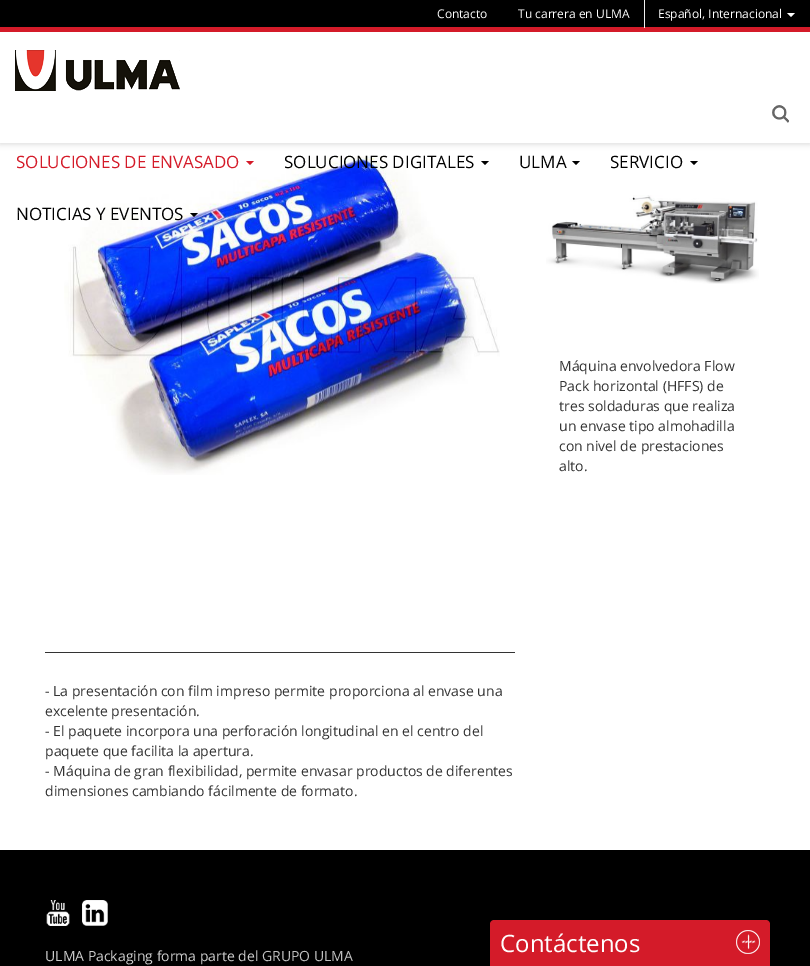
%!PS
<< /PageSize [810 966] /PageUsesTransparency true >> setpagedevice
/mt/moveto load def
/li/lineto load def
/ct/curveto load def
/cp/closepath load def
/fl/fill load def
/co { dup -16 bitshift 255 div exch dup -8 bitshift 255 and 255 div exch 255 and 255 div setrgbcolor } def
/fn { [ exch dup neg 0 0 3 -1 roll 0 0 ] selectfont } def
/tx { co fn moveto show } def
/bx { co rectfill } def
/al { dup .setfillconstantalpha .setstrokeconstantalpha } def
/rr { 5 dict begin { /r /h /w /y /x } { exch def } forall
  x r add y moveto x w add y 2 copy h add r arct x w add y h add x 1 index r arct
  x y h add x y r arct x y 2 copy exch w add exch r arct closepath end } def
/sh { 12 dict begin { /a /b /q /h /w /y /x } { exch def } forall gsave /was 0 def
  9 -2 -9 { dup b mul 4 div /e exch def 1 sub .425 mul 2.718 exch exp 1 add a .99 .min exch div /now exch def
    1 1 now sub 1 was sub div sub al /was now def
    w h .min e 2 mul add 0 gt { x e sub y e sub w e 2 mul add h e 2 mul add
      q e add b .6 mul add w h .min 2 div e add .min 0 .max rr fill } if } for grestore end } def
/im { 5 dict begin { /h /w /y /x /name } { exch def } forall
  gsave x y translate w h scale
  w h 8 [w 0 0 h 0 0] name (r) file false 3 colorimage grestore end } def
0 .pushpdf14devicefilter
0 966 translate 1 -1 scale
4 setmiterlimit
0 0 810 966 16#FFFFFF bx
16#000000 co
0 1 810 143 0 3 .15 sh
0 32 810 111 16#FFFFFF bx
(media/1.raw) 0 0 810 32 im
644 0 1 28 16#EFEFEF bx
16#FFFFFF co
787 13 mt 795 13 li 791 17 li cp fl
(media/2.raw) 15 50 165 41 im
(media/3.raw) 772 105 17 18 im
(media/5.raw) 64 156 436 319 im
16#D41B29 co
246 161 mt 254 161 li 250 165 li cp fl
16#000000 co
481 161 mt 489 161 li 485 165 li cp fl
572 161 mt 580 161 li 576 165 li cp fl
690 161 mt 698 161 li 694 165 li cp fl
190 213 mt 198 213 li 194 217 li cp fl
(media/4.raw) 546 195 213 89 im
45 652 470 1 16#333333 bx
0 850 810 116 16#000000 bx
16#D41B29 co
494 920 mt 766 920 li 768 920 770 922 770 924 ct 770 966 li 490 966 li 490 924 li 490 922 492 920 494 920 ct cp fl
(media/6.raw) 736 930 24 24 im
(media/7.raw) 46 900 24 26 im
(media/8.raw) 82 900 26 26 im
(Contacto) 437 18 /OpenSans-Regular 12 16#FFFFFF tx
(Tu carrera en ULMA) 518 18 /OpenSans-Regular 12 16#FFFFFF tx
(Español, Internacional) 658 18 /OpenSans-Regular 12 16#FFFFFF tx
(SOLUCIONES DE ENVASADO) 16 168 /OpenSans-Regular 17 16#D41B29 tx
(SOLUCIONES DIGITALES) 284 168 /OpenSans-Regular 17 16#000000 tx
(ULMA) 519 168 /OpenSans-Regular 17 16#000000 tx
(SERVICIO) 610 168 /OpenSans-Regular 17 16#000000 tx
(NOTICIAS Y EVENTOS) 16 220 /OpenSans-Regular 17 16#000000 tx
(Máquina envolvedora Flow) 559 371 /OpenSans-Regular 14 16#333333 tx
(Pack horizontal \(HFFS\) de) 559 391 /OpenSans-Regular 14 16#333333 tx
(tres soldaduras que realiza) 559 411 /OpenSans-Regular 14 16#333333 tx
(un envase tipo almohadilla) 559 431 /OpenSans-Regular 14 16#333333 tx
(con nivel de prestaciones) 559 451 /OpenSans-Regular 14 16#333333 tx
(alto.) 559 471 /OpenSans-Regular 14 16#333333 tx
(- La presentación con film impreso permite proporciona al envase una) 45 696 /OpenSans-Regular 14 16#333333 tx
(excelente presentación.) 45 716 /OpenSans-Regular 14 16#333333 tx
(- El paquete incorpora una perforación longitudinal en el centro del) 45 736 /OpenSans-Regular 14 16#333333 tx
(paquete que facilita la apertura.) 45 756 /OpenSans-Regular 14 16#333333 tx
(- Máquina de gran flexibilidad, permite envasar productos de diferentes) 45 776 /OpenSans-Regular 14 16#333333 tx
(dimensiones cambiando fácilmente de formato.) 45 796 /OpenSans-Regular 14 16#333333 tx
(Contáctenos) 500 952 /OpenSans-Regular 24 16#FFFFFF tx
(ULMA Packaging forma parte del) 45 961 /OpenSans-Regular 14 16#CCCCCC tx
(GRUPO ULMA) 262 961 /OpenSans-Regular 14 16#C0C0C0 tx
.poppdf14devicefilter showpage
